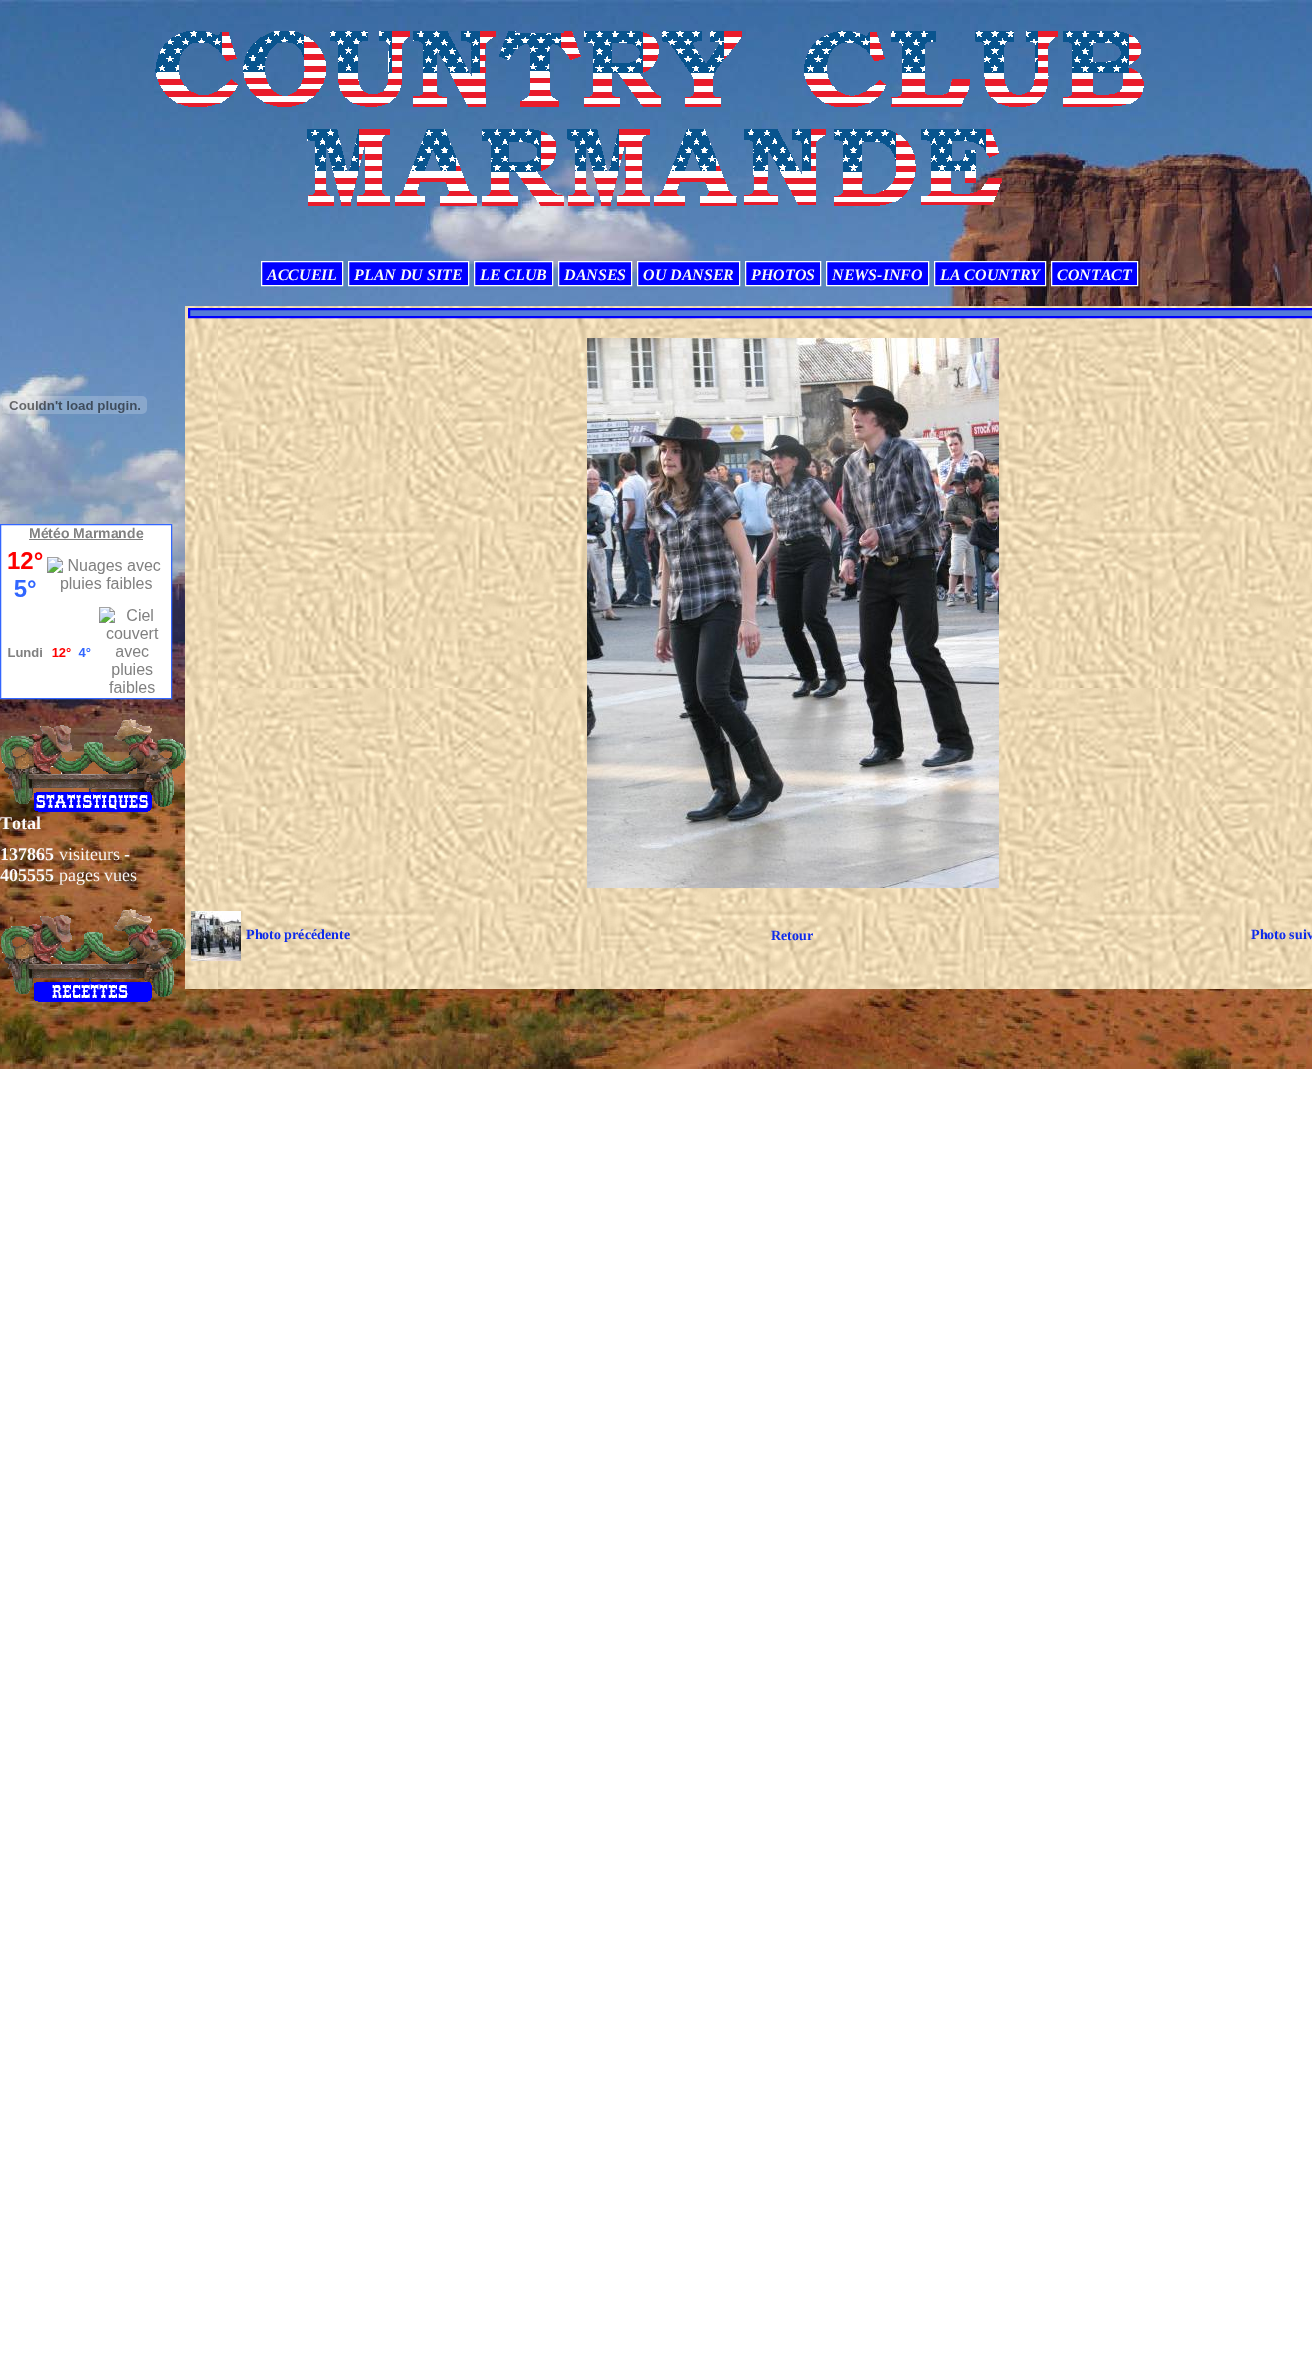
%!PS
<< /PageSize [1312 2374] >> setpagedevice
/mt/moveto load def
/li/lineto load def
/cp/closepath load def
/fl/fill load def
/st/stroke load def
/gs/gsave load def
/gr/grestore load def
/lw/setlinewidth load def
/co { dup -16 bitshift 255 div exch dup -8 bitshift 255 and 255 div exch 255 and 255 div setrgbcolor } def
/fn { [ exch dup neg 0 0 3 -1 roll 0 0 ] selectfont } def
/tx { co fn moveto show } def
/bx { co rectfill } def
/im { 5 dict begin { /h /w /y /x /name } { exch def } forall
  gsave x y translate w h scale
  w h 8 [w 0 0 h 0 0] name (r) file false 3 colorimage grestore end } def
0 2374 translate 1 -1 scale
4 setmiterlimit
0 0 1312 2374 16#FFFFFF bx
(media/1.raw) 0 0 1312 1069 im
(media/2.raw) 155 31 989 175 im
16#0000FF co
261.5 261.5 mt 342.5 261.5 li 342.5 285.5 li 261.5 285.5 li cp gs fl gr
16#FFFFFF co
st
16#0000FF co
348.5 261.5 mt 468.5 261.5 li 468.5 285.5 li 348.5 285.5 li cp gs fl gr
16#FFFFFF co
st
16#0000FF co
474.5 261.5 mt 552.5 261.5 li 552.5 285.5 li 474.5 285.5 li cp gs fl gr
16#FFFFFF co
st
16#0000FF co
558.5 261.5 mt 631.5 261.5 li 631.5 285.5 li 558.5 285.5 li cp gs fl gr
16#FFFFFF co
st
16#0000FF co
637.5 261.5 mt 739.5 261.5 li 739.5 285.5 li 637.5 285.5 li cp gs fl gr
16#FFFFFF co
st
16#0000FF co
745.5 261.5 mt 820.5 261.5 li 820.5 285.5 li 745.5 285.5 li cp gs fl gr
16#FFFFFF co
st
16#0000FF co
826.5 261.5 mt 928.5 261.5 li 928.5 285.5 li 826.5 285.5 li cp gs fl gr
16#FFFFFF co
st
16#0000FF co
934.5 261.5 mt 1045.5 261.5 li 1045.5 285.5 li 934.5 285.5 li cp gs fl gr
16#FFFFFF co
st
16#0000FF co
1051.5 261.5 mt 1137.5 261.5 li 1137.5 285.5 li 1051.5 285.5 li cp gs fl gr
16#FFFFFF co
st
(media/3.raw) 3 396 144 18 im
.5 524.5 mt 171.5 524.5 li 171.5 698.5 li .5 698.5 li cp gs fl gr
16#3366FF co
st
29 539 114 1 16#808080 bx
(media/4.raw) 8 552 153 141 im
(media/7.raw) 185 306 1127 683 im
(media/5.raw) 1 719 185 93 im
(media/6.raw) 1 909 185 93 im
16#547AD9 co
189 309 mt 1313 309 li 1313 317 li 189 317 li cp gs fl gr
16#0000FF co
2 lw
st
(media/8.raw) 587 338 412 550 im
(media/9.raw) 191 911 50 50 im
(ACCUEIL) 267 280 /LiberationSerif-BoldItalic 16 16#FAFAFA tx
(PLAN DU SITE) 354 280 /LiberationSerif-BoldItalic 16 16#FAFAFA tx
(LE CLUB) 480 280 /LiberationSerif-BoldItalic 16 16#FAFAFA tx
(DANSES) 564 280 /LiberationSerif-BoldItalic 16 16#FAFAFA tx
(OU DANSER) 643 280 /LiberationSerif-BoldItalic 16 16#FAFAFA tx
(PHOTOS) 751 280 /LiberationSerif-BoldItalic 16 16#FAFAFA tx
(NEWS-INFO) 832 280 /LiberationSerif-BoldItalic 16 16#FAFAFA tx
(LA COUNTRY) 940 280 /LiberationSerif-BoldItalic 16 16#FAFAFA tx
(CONTACT) 1057 280 /LiberationSerif-BoldItalic 16 16#FAFAFA tx
(Météo Marmande) 29 538 /LiberationSans-Bold 14 16#808080 tx
(Total) 0 829 /LiberationSerif-Bold 18 16#FAFAFA tx
(137865) 0 860 /LiberationSerif-Bold 18 16#FAFAFA tx
(visiteurs -) 59 860 /LiberationSerif-Regular 18 16#FAFAFA tx
(405555) 0 881 /LiberationSerif-Bold 18 16#FAFAFA tx
(pages vues) 59 881 /LiberationSerif-Regular 18 16#FAFAFA tx
(Photo précédente) 246 939 /LiberationSerif-Bold 14 16#0E2BEB tx
(Retour) 771 940 /LiberationSerif-Bold 14 16#0E2BEB tx
(Photo suiv) 1251 939 /LiberationSerif-Bold 14 16#0E2BEB tx
showpage
